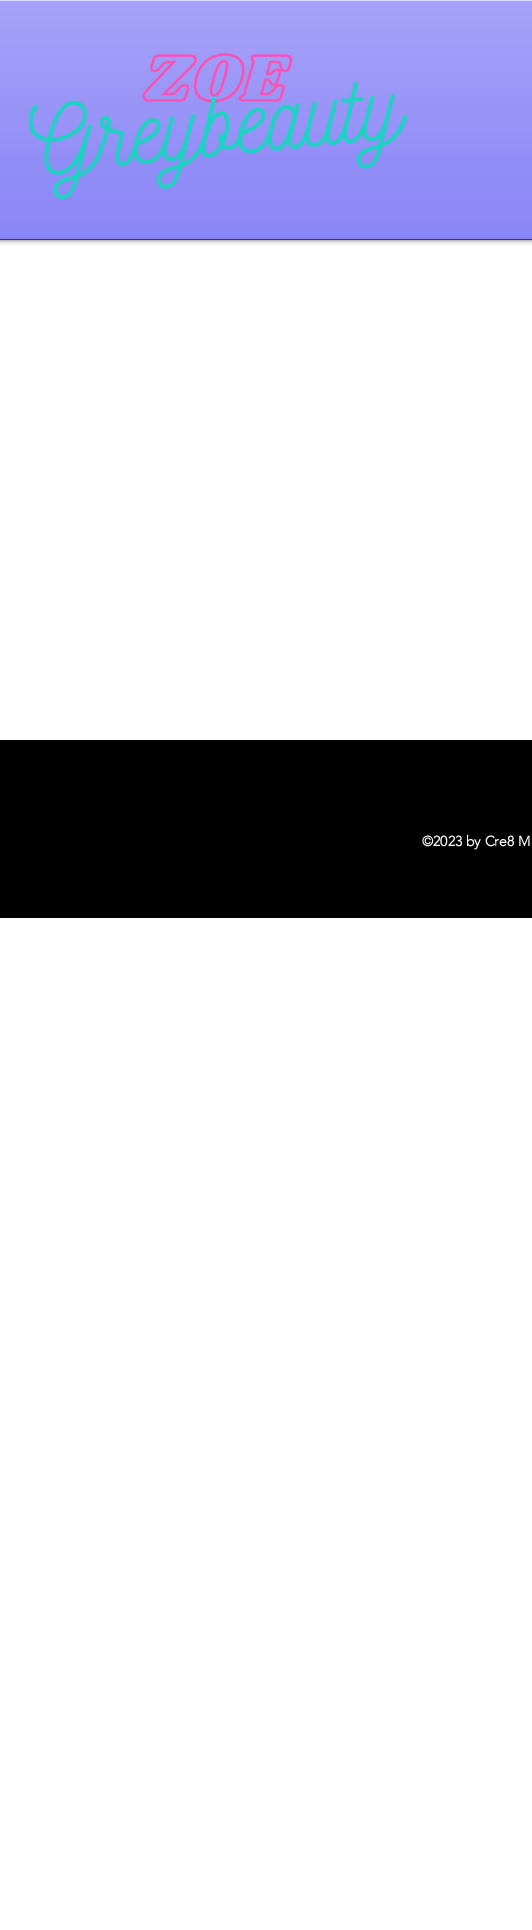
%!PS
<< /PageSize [532 1930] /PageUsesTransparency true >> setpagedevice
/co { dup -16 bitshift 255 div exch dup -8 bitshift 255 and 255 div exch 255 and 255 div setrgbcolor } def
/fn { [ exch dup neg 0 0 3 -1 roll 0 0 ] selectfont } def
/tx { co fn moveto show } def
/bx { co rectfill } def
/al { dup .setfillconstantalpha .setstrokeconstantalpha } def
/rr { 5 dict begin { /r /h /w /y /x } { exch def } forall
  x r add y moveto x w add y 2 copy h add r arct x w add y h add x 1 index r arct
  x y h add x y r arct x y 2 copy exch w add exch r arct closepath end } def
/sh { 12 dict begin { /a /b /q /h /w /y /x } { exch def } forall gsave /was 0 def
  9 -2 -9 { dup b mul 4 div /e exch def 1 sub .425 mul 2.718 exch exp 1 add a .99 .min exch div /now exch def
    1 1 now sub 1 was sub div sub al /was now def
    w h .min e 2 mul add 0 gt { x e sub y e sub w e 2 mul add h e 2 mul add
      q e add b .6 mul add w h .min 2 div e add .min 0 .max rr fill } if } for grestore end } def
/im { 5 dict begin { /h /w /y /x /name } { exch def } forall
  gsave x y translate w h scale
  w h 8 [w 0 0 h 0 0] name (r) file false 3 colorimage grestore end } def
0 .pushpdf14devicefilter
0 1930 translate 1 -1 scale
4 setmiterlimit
0 0 532 1930 16#FFFFFF bx
16#000000 co
0 0 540 240 0 2.5 .6 sh
0 1 532 238 16#8782F6 bx
(media/1.raw) 0 1 532 235 im
0 239 532 1 16#363462 bx
0 0 532 1 16#DBDAFC bx
(media/2.raw) 28 53 380 147 im
0 740 532 178 16#000000 bx
(©2023 by Cre8 M) 422 846 /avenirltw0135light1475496-Bold 14 16#FFFFFF tx
.poppdf14devicefilter showpage
